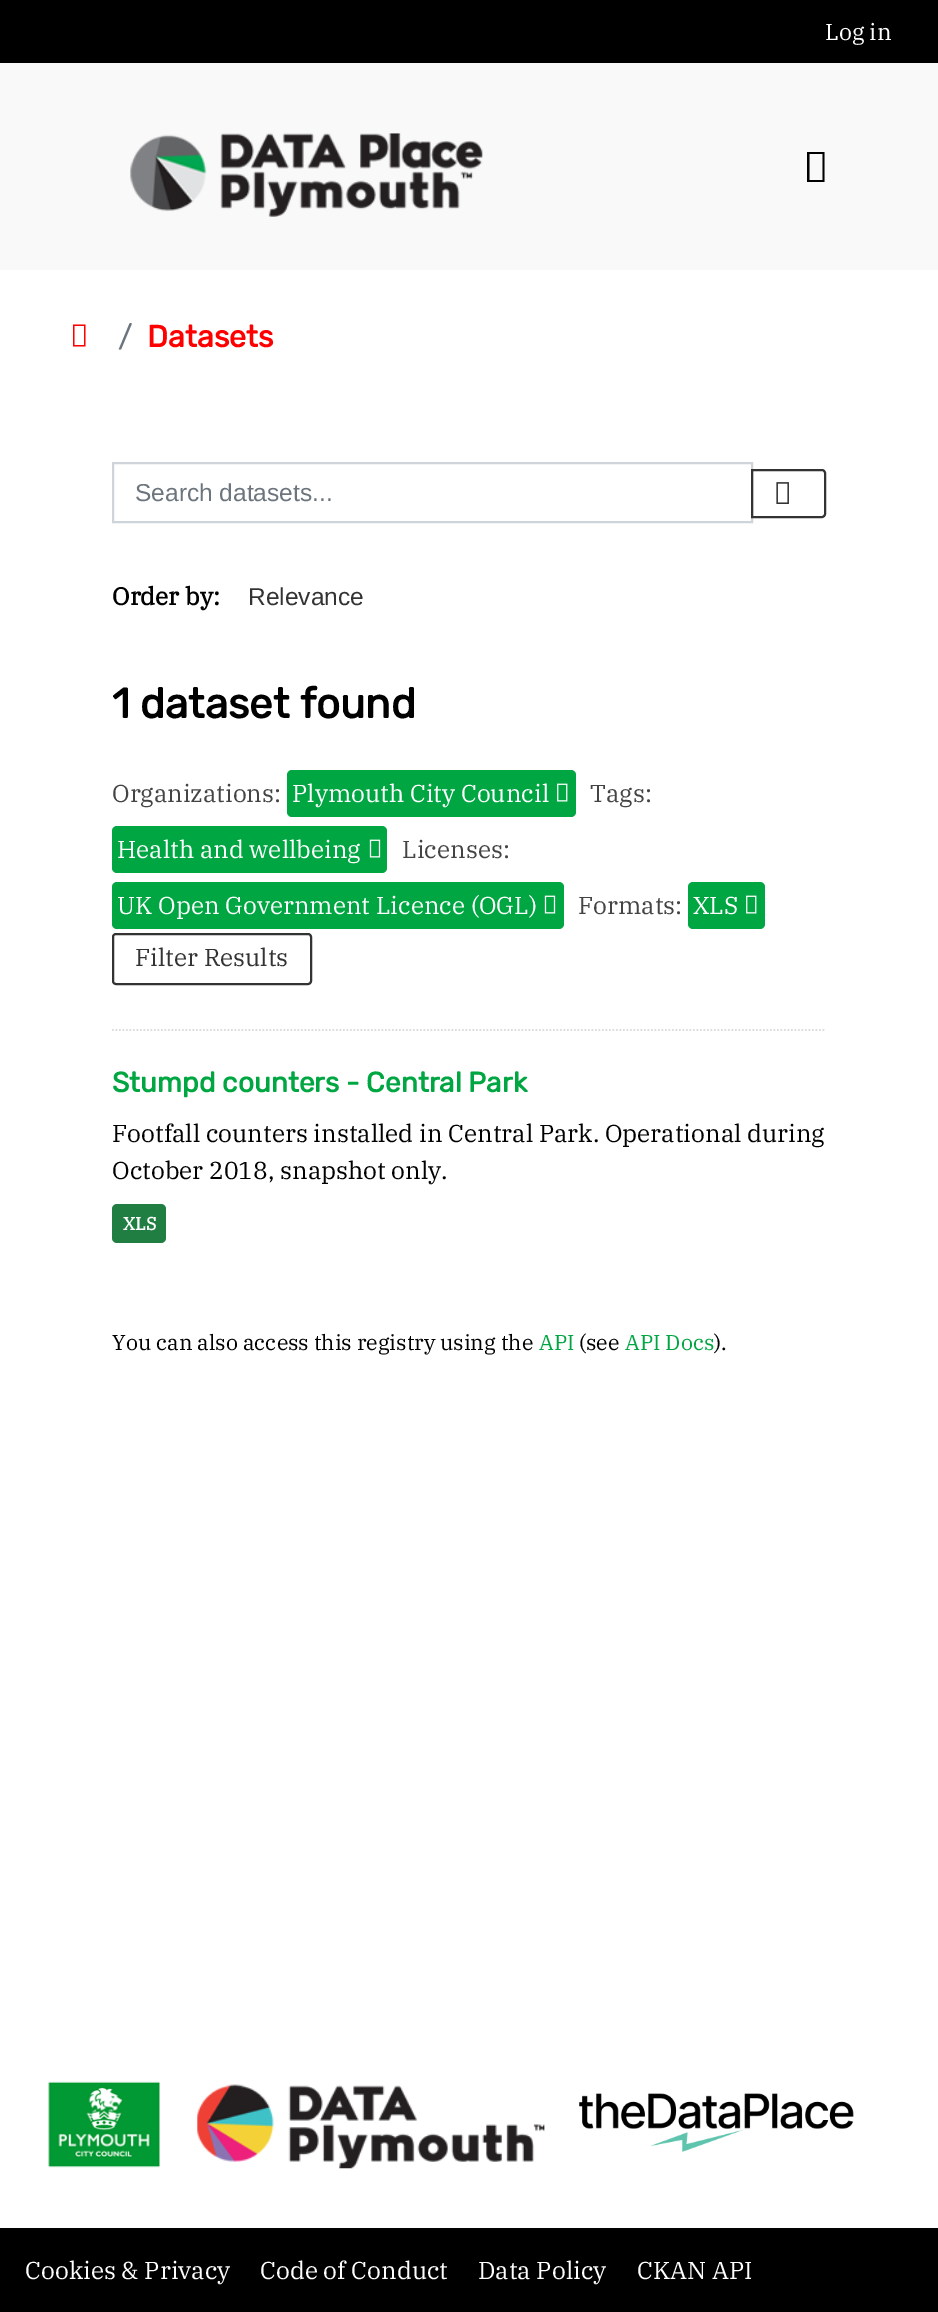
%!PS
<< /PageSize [938 2312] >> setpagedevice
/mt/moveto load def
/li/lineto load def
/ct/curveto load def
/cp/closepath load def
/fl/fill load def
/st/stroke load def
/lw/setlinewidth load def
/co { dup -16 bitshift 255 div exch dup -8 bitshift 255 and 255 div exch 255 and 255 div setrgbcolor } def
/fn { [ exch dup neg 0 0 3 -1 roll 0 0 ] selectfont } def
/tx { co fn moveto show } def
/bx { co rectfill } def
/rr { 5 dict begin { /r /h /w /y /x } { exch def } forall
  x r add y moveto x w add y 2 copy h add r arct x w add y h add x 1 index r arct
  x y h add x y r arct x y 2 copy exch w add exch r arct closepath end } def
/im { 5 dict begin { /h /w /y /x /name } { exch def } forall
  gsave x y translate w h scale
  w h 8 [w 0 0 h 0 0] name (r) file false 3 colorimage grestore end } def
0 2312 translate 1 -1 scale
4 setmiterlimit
0 0 938 2312 16#FFFFFF bx
0 0 938 63 16#000000 bx
0 63 938 207 16#F9F9F9 bx
(media/1.raw) 130 133 353 84 im
16#000000 co
807 182 mt 807 152 li 824.5 152 li 824.5 182 li cp 809.5 180 mt 822.5 180 li 822.5 154 li 809.5 154 li cp fl
16#FF0000 co
73 346.5 mt 73 324.5 li 85.5 324.5 li 85.5 346.5 li cp 74.5 345 mt 84 345 li 84 326 li 74.5 326 li cp fl
16#DDDDDD co
1.8 lw
[1.75 1.75] 0 setdash
112 1030 mt 826 1030 li st
16#CED4DA co
2 lw
[] 0 setdash
113 463 639 59 rectstroke
16#333333 co
752 470 mt 822 470 li 823.5 470 825 471.5 825 473 ct 825 514 li 825 515.5 823.5 517 822 517 ct 752 517 li cp st
(media/2.raw) 776 482 13 22 im
16#00A641 co
287 770 289 47 5 rr fl
(media/3.raw) 557 783 11 19 im
112 826 275 47 5 rr fl
(media/4.raw) 369 839 12 19 im
112 882 452 47 5 rr fl
(media/4.raw) 544 895 12 19 im
688 882 77 47 5 rr fl
(media/3.raw) 746 895 11 19 im
16#333333 co
113 934 198 50 3 rr st
16#207E42 co
112 1204 54 39 5 rr fl
(media/5.raw) 48 2081 112 87 im
(media/6.raw) 197 2084 348 85 im
(media/7.raw) 579 2093 275 59 im
0 2228 938 84 16#000000 bx
(Log in) 825 40 /IBMPlexSerif-Regular 23 16#FFFFFF tx
(/) 118 347 /Rubik-Light 30.5 16#6C757D tx
(Datasets) 147 347 /Rubik-Bold 30.5 16#FF0000 tx
(Search datasets...) 135 501 /LiberationSans-Regular 24.5 16#6C757D tx
(Order by:) 112 605 /IBMPlexSerif-Bold 24.5 16#000000 tx
(Relevance) 248 605 /LiberationSans-Regular 24.5 16#333333 tx
(1 dataset found) 112 718 /Rubik-Bold 42 16#000000 tx
(Organizations:) 112 802 /IBMPlexSerif-Regular 24.5 16#444444 tx
(Plymouth City Council) 292 802 /IBMPlexSerif-Regular 24.5 16#FFFFFF tx
(Tags:) 590 802 /IBMPlexSerif-Regular 24.5 16#444444 tx
(Health and wellbeing) 117 858 /IBMPlexSerif-Regular 24.5 16#FFFFFF tx
(Licenses:) 402 858 /IBMPlexSerif-Regular 24.5 16#444444 tx
(UK Open Government Licence \(OGL\)) 117 914 /IBMPlexSerif-Regular 24.5 16#FFFFFF tx
(Formats:) 578 914 /IBMPlexSerif-Regular 24.5 16#444444 tx
(XLS) 693 914 /IBMPlexSerif-Regular 24.5 16#FFFFFF tx
(Filter Results) 135 966 /IBMPlexSerif-Regular 24.5 16#333333 tx
(Stumpd counters - Central Park) 112 1092 /Rubik-Bold 28 16#00A641 tx
(Footfall counters installed in Central Park. Operational during) 112 1142 /IBMPlexSerif-Regular 24.5 16#000000 tx
(October 2018, snapshot only.) 112 1179 /IBMPlexSerif-Regular 24.5 16#000000 tx
(XLS) 123 1230 /IBMPlexSerif-Bold 18 16#FFFFFF tx
(You can also access this registry using the) 112 1350 /IBMPlexSerif-Regular 21.4 16#000000 tx
(API) 539 1350 /IBMPlexSerif-Regular 21.4 16#00A641 tx
(\(see) 579 1350 /IBMPlexSerif-Regular 21.4 16#000000 tx
(API Docs) 625 1350 /IBMPlexSerif-Regular 21.4 16#00A641 tx
(\).) 714 1350 /IBMPlexSerif-Regular 21.4 16#000000 tx
(Cookies & Privacy) 25 2279 /IBMPlexSerif-Regular 24.5 16#FFFFFF tx
(Code of Conduct) 260 2279 /IBMPlexSerif-Regular 24.5 16#FFFFFF tx
(Data Policy) 478 2279 /IBMPlexSerif-Regular 24.5 16#FFFFFF tx
(CKAN API) 637 2279 /IBMPlexSerif-Regular 24.5 16#FFFFFF tx
showpage
